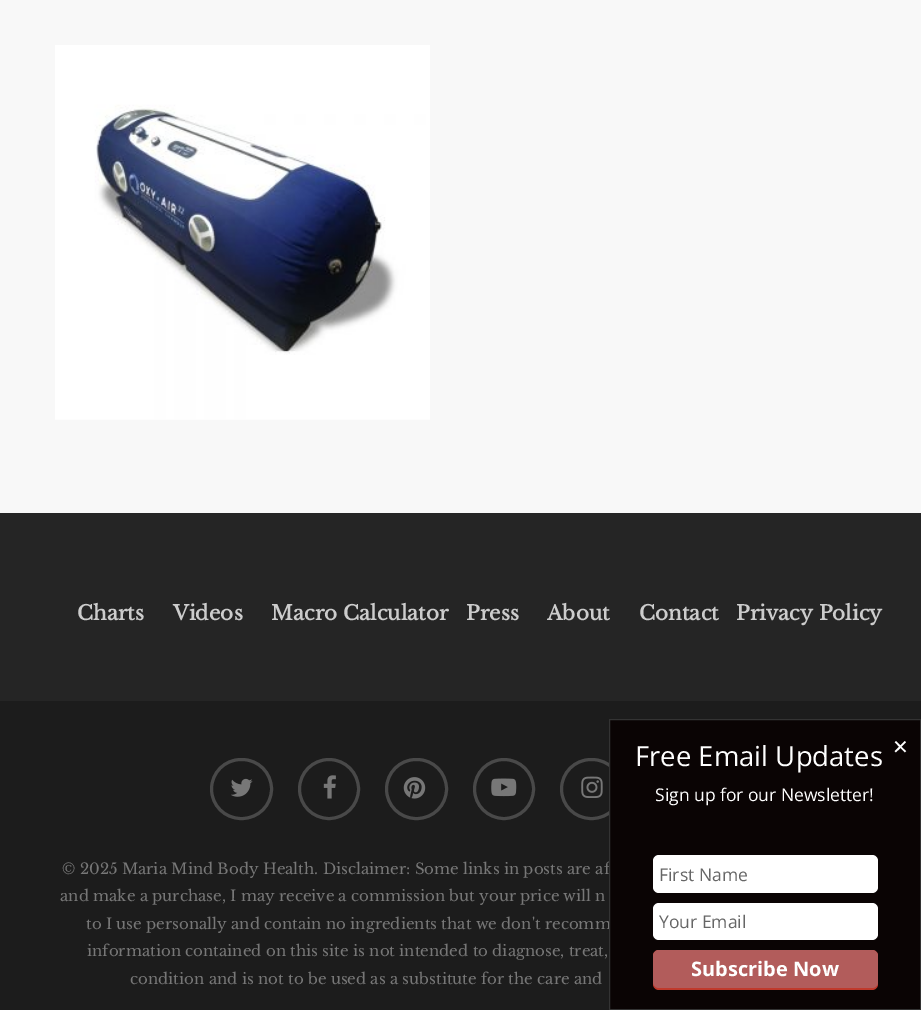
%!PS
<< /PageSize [921 1010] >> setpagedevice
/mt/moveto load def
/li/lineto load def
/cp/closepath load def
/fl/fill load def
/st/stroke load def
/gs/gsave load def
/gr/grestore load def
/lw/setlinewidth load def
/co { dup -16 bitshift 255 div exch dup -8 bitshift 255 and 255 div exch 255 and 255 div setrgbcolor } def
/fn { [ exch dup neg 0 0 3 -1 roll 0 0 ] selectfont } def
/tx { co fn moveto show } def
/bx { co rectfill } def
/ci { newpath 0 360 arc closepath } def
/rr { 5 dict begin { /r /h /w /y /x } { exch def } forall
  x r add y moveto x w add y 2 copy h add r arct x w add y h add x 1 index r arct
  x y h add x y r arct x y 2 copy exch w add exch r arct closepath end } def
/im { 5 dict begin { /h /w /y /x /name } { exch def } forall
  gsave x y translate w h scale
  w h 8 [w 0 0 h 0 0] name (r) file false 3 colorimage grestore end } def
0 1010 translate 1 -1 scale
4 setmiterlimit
0 0 921 1010 16#252525 bx
0 0 921 513 16#F8F8F8 bx
(media/1.raw) 55 45 375 375 im
0 701 921 309 16#1C1C1C bx
(media/2.raw) 231 778 22 19 im
16#494949 co
3 lw
211.5 759.5 60 59 29.5 rr st
(media/3.raw) 323 775 13 24 im
329 789 29.5 ci st
(media/4.raw) 403 777 23 22 im
386.5 759.5 60 59 29.5 rr st
(media/5.raw) 491 778 26 19 im
504 789 29.5 ci st
(media/6.raw) 581 776 22 22 im
561.5 759.5 60 59 29.5 rr st
(Charts) 77 620 /LibreBaskerville-Bold 20 16#CCCCCC tx
(Videos) 173 620 /LibreBaskerville-Bold 20 16#CCCCCC tx
(Macro Calculator) 271 620 /LibreBaskerville-Bold 20 16#CCCCCC tx
(Press) 466 620 /LibreBaskerville-Bold 20 16#CCCCCC tx
(About) 547 620 /LibreBaskerville-Bold 20 16#CCCCCC tx
(Contact) 639 620 /LibreBaskerville-Bold 20 16#CCCCCC tx
(Privacy Policy) 736 620 /LibreBaskerville-Bold 20 16#CCCCCC tx
(© 2025 Maria Mind Body Health. Disclaimer: Some links in posts are af) 62 874 /LibreBaskerville-Regular 15 16#777777 tx
(and make a purchase, I may receive a commission but your price will n) 60 901 /LibreBaskerville-Regular 15 16#777777 tx
(to I use personally and contain no ingredients that we don't recomm) 86 929 /LibreBaskerville-Regular 15 16#777777 tx
(information contained on this site is not intended to diagnose, treat,) 87 956 /LibreBaskerville-Regular 15 16#777777 tx
(condition and is not to be used as a substitute for the care and) 130 984 /LibreBaskerville-Regular 15 16#777777 tx
16#0A0404 co
609.5 719.5 mt 920.5 719.5 li 920.5 1009.5 li 609.5 1009.5 li cp gs fl gr
16#333333 co
1 lw
st
(Free Email Updates) 635 766 /OpenSans-Regular 27.5 16#FFFFFF tx
(✕) 892 754 /DejaVuSans-Regular 20 16#FFFFFF tx
(Sign up for our Newsletter!) 655 801 /OpenSans-Regular 17.5 16#FFFFFF tx
653 855 225 38 6 rr fl
(First Name) 659 881 /OpenSans-Regular 17.5 16#666666 tx
16#FFFFFF co
653 903 225 37 6 rr fl
(Your Email) 659 928 /OpenSans-Regular 17.5 16#666666 tx
16#C0392B co
653 950 225 40 6 rr fl
16#B25C5B co
653 950 225 38 6 rr fl
(Subscribe Now) 691 976 /OpenSans-Bold 20 16#FFFFFF tx
showpage
